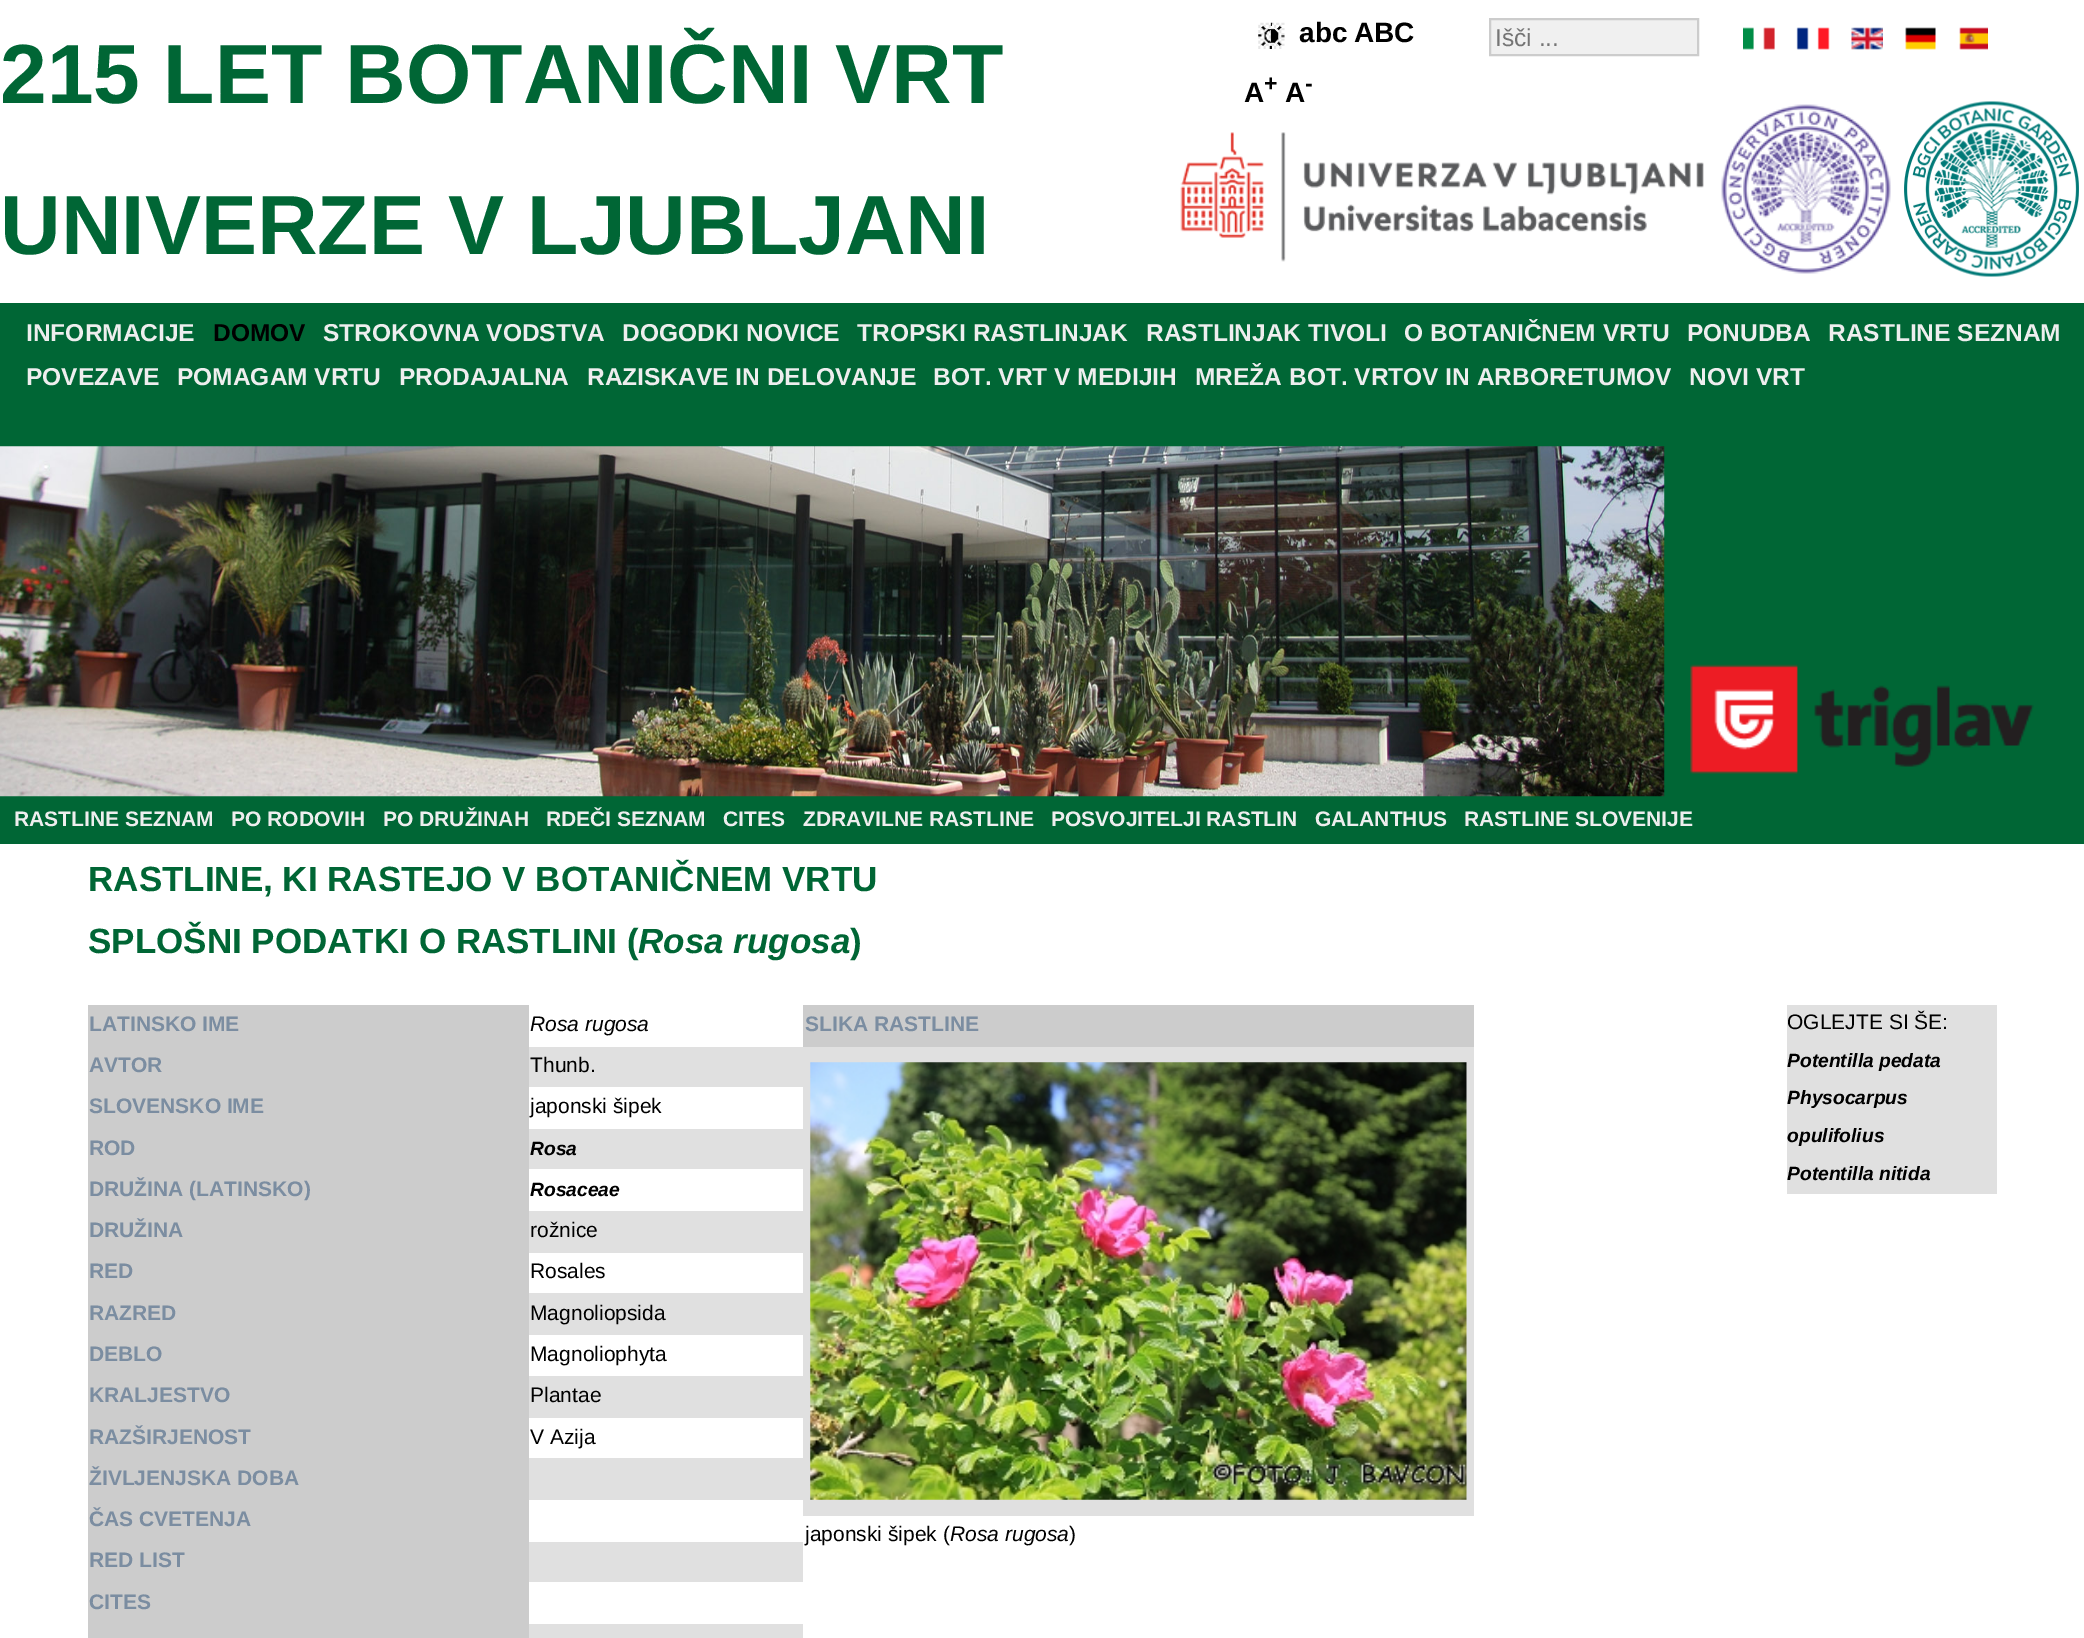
%!PS
<< /PageSize [2084 1638] >> setpagedevice
/mt/moveto load def
/li/lineto load def
/cp/closepath load def
/fl/fill load def
/st/stroke load def
/gs/gsave load def
/gr/grestore load def
/lw/setlinewidth load def
/co { dup -16 bitshift 255 div exch dup -8 bitshift 255 and 255 div exch 255 and 255 div setrgbcolor } def
/fn { [ exch dup neg 0 0 3 -1 roll 0 0 ] selectfont } def
/tx { co fn moveto show } def
/bx { co rectfill } def
/im { 5 dict begin { /h /w /y /x /name } { exch def } forall
  gsave x y translate w h scale
  w h 8 [w 0 0 h 0 0] name (r) file false 3 colorimage grestore end } def
0 1638 translate 1 -1 scale
4 setmiterlimit
0 0 2084 1638 16#FFFFFF bx
(media/1.raw) 1258 22 27 27 im
16#F0F0F0 co
1490 19 mt 1698 19 li 1698 55 li 1490 55 li cp gs fl gr
16#CCCCCC co
2 lw
st
(media/2.raw) 1743 27 32 23 im
(media/3.raw) 1796 27 34 23 im
(media/4.raw) 1851 27 32 23 im
(media/5.raw) 1905 27 31 23 im
(media/6.raw) 1959 27 29 23 im
(media/7.raw) 1180 132 524 130 im
(media/8.raw) 1721 104 170 170 im
(media/9.raw) 1904 101 175 176 im
0 303 2084 541 16#006635 bx
(media/10.raw) 0 446 1665 351 im
(media/11.raw) 1690 664 344 110 im
88 1005 441 633 16#CCCCCC bx
529 1047 274 40 16#E0E0E0 bx
529 1129 274 40 16#E0E0E0 bx
529 1211 274 42 16#E0E0E0 bx
529 1293 274 42 16#E0E0E0 bx
529 1376 274 42 16#E0E0E0 bx
529 1458 274 42 16#E0E0E0 bx
529 1542 274 40 16#E0E0E0 bx
529 1624 274 14 16#E0E0E0 bx
803 1005 671 42 16#CCCCCC bx
803 1047 671 469 16#E0E0E0 bx
(media/12.raw) 810 1062 657 438 im
1787 1005 210 189 16#E0E0E0 bx
(215 LET BOTANIČNI VRT) 0 103 /LiberationSans-Bold 84 16#006635 tx
(UNIVERZE V LJUBLJANI) 0 254 /LiberationSans-Bold 84 16#006635 tx
(abc) 1299 42 /LiberationSans-Bold 28 16#000000 tx
(ABC) 1354 42 /LiberationSans-Bold 28 16#000000 tx
(A) 1244 102 /LiberationSans-Bold 28 16#000000 tx
(+) 1264 91 /LiberationSans-Bold 23 16#000000 tx
(A) 1285 102 /LiberationSans-Bold 28 16#000000 tx
(-) 1305 91 /LiberationSans-Bold 23 16#000000 tx
(Išči ...) 1495 46 /LiberationSans-Regular 24.5 16#757575 tx
(INFORMACIJE) 26 341 /LiberationSans-Bold 24.5 16#EEEEEE tx
(DOMOV) 213 341 /LiberationSans-Bold 24.5 16#000000 tx
(STROKOVNA VODSTVA) 323 341 /LiberationSans-Bold 24.5 16#EEEEEE tx
(DOGODKI NOVICE) 622 341 /LiberationSans-Bold 24.5 16#EEEEEE tx
(TROPSKI RASTLINJAK) 857 341 /LiberationSans-Bold 24.5 16#EEEEEE tx
(RASTLINJAK TIVOLI) 1146 341 /LiberationSans-Bold 24.5 16#EEEEEE tx
(O BOTANIČNEM VRTU) 1404 341 /LiberationSans-Bold 24.5 16#EEEEEE tx
(PONUDBA) 1687 341 /LiberationSans-Bold 24.5 16#EEEEEE tx
(RASTLINE SEZNAM) 1828 341 /LiberationSans-Bold 24.5 16#EEEEEE tx
(POVEZAVE) 26 385 /LiberationSans-Bold 24.5 16#EEEEEE tx
(POMAGAM VRTU) 177 385 /LiberationSans-Bold 24.5 16#EEEEEE tx
(PRODAJALNA) 399 385 /LiberationSans-Bold 24.5 16#EEEEEE tx
(RAZISKAVE IN DELOVANJE) 587 385 /LiberationSans-Bold 24.5 16#EEEEEE tx
(BOT. VRT V MEDIJIH) 933 385 /LiberationSans-Bold 24.5 16#EEEEEE tx
(MREŽA BOT. VRTOV IN ARBORETUMOV) 1195 385 /LiberationSans-Bold 24.5 16#EEEEEE tx
(NOVI VRT) 1689 385 /LiberationSans-Bold 24.5 16#EEEEEE tx
(RASTLINE SEZNAM) 14 826 /LiberationSans-Bold 21 16#EEEEEE tx
(PO RODOVIH) 231 826 /LiberationSans-Bold 21 16#EEEEEE tx
(PO DRUŽINAH) 383 826 /LiberationSans-Bold 21 16#EEEEEE tx
(RDEČI SEZNAM) 546 826 /LiberationSans-Bold 21 16#EEEEEE tx
(CITES) 723 826 /LiberationSans-Bold 21 16#EEEEEE tx
(ZDRAVILNE RASTLINE) 803 826 /LiberationSans-Bold 21 16#EEEEEE tx
(POSVOJITELJI RASTLIN) 1051 826 /LiberationSans-Bold 21 16#EEEEEE tx
(GALANTHUS) 1315 826 /LiberationSans-Bold 21 16#EEEEEE tx
(RASTLINE SLOVENIJE) 1464 826 /LiberationSans-Bold 21 16#EEEEEE tx
(RASTLINE, KI RASTEJO V BOTANIČNEM VRTU) 88 891 /LiberationSans-Bold 35 16#006635 tx
(SPLOŠNI PODATKI O RASTLINI \() 88 953 /LiberationSans-Bold 35 16#006635 tx
(Rosa rugosa) 638 953 /LiberationSans-BoldItalic 35 16#006635 tx
(\)) 850 953 /LiberationSans-Bold 35 16#006635 tx
(LATINSKO IME) 89 1031 /LiberationSans-Bold 21 16#7B8DA1 tx
(Rosa rugosa) 530 1031 /LiberationSans-Italic 21 16#000000 tx
(AVTOR) 89 1072 /LiberationSans-Bold 21 16#7B8DA1 tx
(Thunb.) 530 1072 /LiberationSans-Regular 21 16#000000 tx
(SLOVENSKO IME) 89 1113 /LiberationSans-Bold 21 16#7B8DA1 tx
(japonski šipek) 530 1113 /LiberationSans-Regular 21 16#000000 tx
(ROD) 89 1155 /LiberationSans-Bold 21 16#7B8DA1 tx
(Rosa) 530 1155 /LiberationSans-BoldItalic 19.25 16#000000 tx
(DRUŽINA \(LATINSKO\)) 89 1196 /LiberationSans-Bold 21 16#7B8DA1 tx
(Rosaceae) 530 1196 /LiberationSans-BoldItalic 19.25 16#000000 tx
(DRUŽINA) 89 1237 /LiberationSans-Bold 21 16#7B8DA1 tx
(rožnice) 530 1237 /LiberationSans-Regular 21 16#000000 tx
(RED) 89 1278 /LiberationSans-Bold 21 16#7B8DA1 tx
(Rosales) 530 1278 /LiberationSans-Regular 21 16#000000 tx
(RAZRED) 89 1320 /LiberationSans-Bold 21 16#7B8DA1 tx
(Magnoliopsida) 530 1320 /LiberationSans-Regular 21 16#000000 tx
(DEBLO) 89 1361 /LiberationSans-Bold 21 16#7B8DA1 tx
(Magnoliophyta) 530 1361 /LiberationSans-Regular 21 16#000000 tx
(KRALJESTVO) 89 1402 /LiberationSans-Bold 21 16#7B8DA1 tx
(Plantae) 530 1402 /LiberationSans-Regular 21 16#000000 tx
(RAZŠIRJENOST) 89 1444 /LiberationSans-Bold 21 16#7B8DA1 tx
(V Azija) 530 1444 /LiberationSans-Regular 21 16#000000 tx
(ŽIVLJENJSKA DOBA) 89 1485 /LiberationSans-Bold 21 16#7B8DA1 tx
(ČAS CVETENJA) 89 1526 /LiberationSans-Bold 21 16#7B8DA1 tx
(RED LIST) 89 1567 /LiberationSans-Bold 21 16#7B8DA1 tx
(CITES) 89 1609 /LiberationSans-Bold 21 16#7B8DA1 tx
(SLIKA RASTLINE) 805 1031 /LiberationSans-Bold 21 16#7B8DA1 tx
(japonski šipek \() 805 1541 /LiberationSans-Regular 21 16#000000 tx
(Rosa rugosa) 950 1541 /LiberationSans-Italic 21 16#000000 tx
(\)) 1069 1541 /LiberationSans-Regular 21 16#000000 tx
(OGLEJTE SI ŠE:) 1787 1029 /LiberationSans-Regular 21 16#000000 tx
(Potentilla pedata) 1787 1067 /LiberationSans-BoldItalic 19.25 16#000000 tx
(Physocarpus) 1787 1104 /LiberationSans-BoldItalic 19.25 16#000000 tx
(opulifolius) 1787 1142 /LiberationSans-BoldItalic 19.25 16#000000 tx
(Potentilla nitida) 1787 1180 /LiberationSans-BoldItalic 19.25 16#000000 tx
showpage
